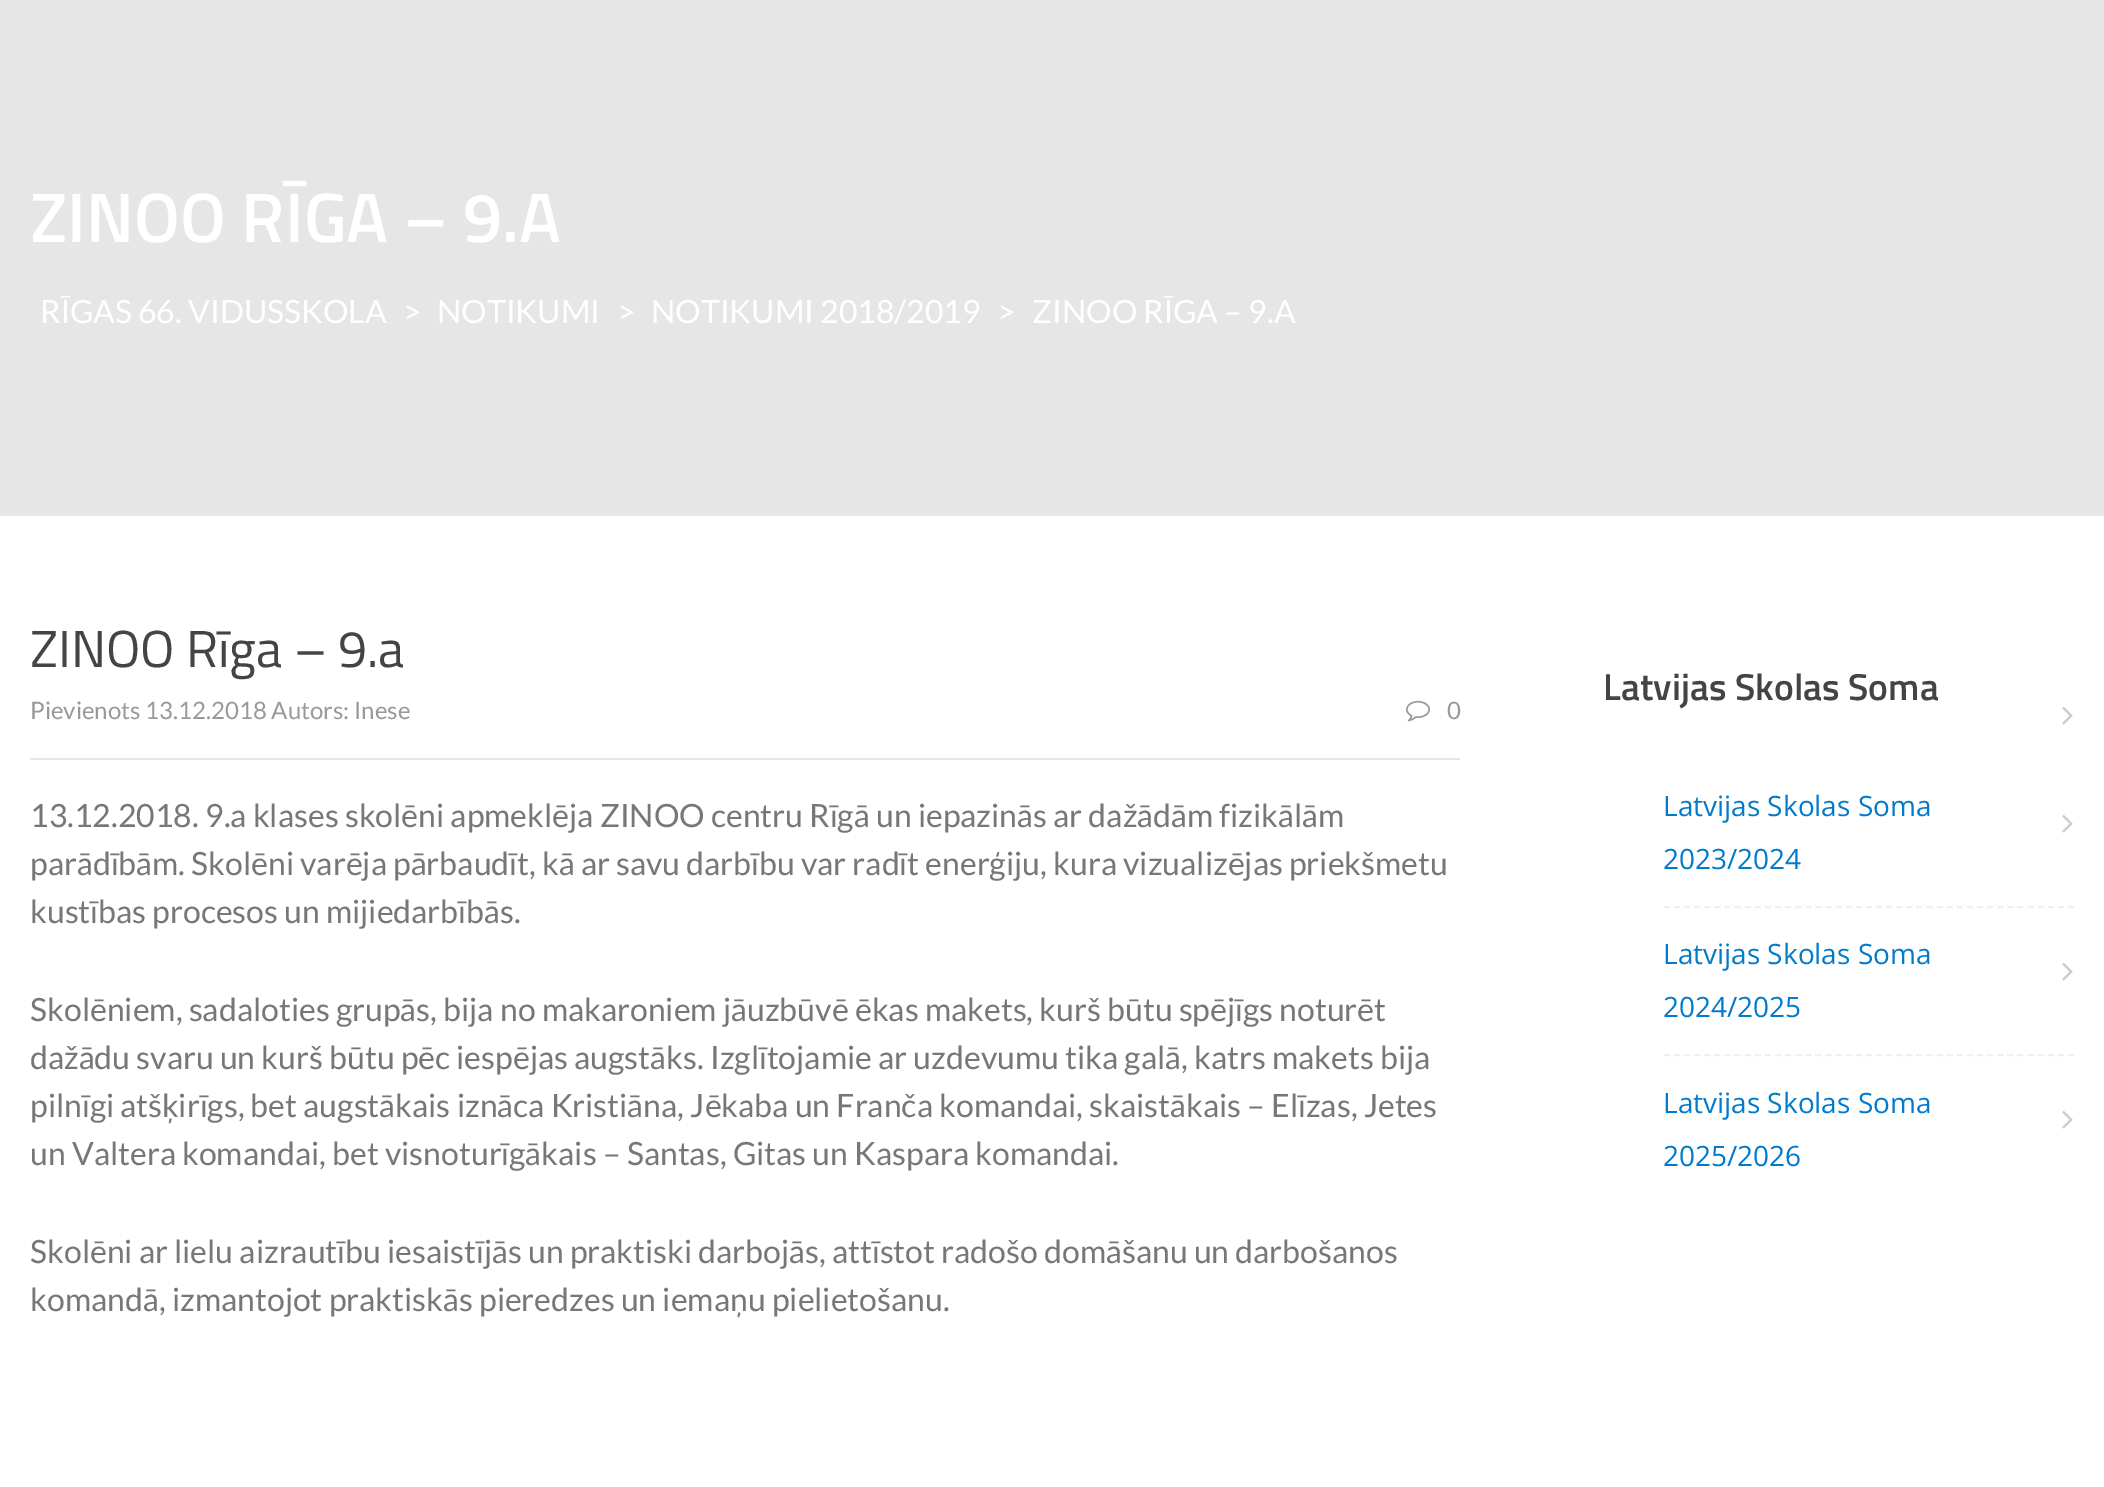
%!PS
<< /PageSize [2104 1487] >> setpagedevice
/mt/moveto load def
/li/lineto load def
/st/stroke load def
/lw/setlinewidth load def
/co { dup -16 bitshift 255 div exch dup -8 bitshift 255 and 255 div exch 255 and 255 div setrgbcolor } def
/fn { [ exch dup neg 0 0 3 -1 roll 0 0 ] selectfont } def
/tx { co fn moveto show } def
/bx { co rectfill } def
/im { 5 dict begin { /h /w /y /x /name } { exch def } forall
  gsave x y translate w h scale
  w h 8 [w 0 0 h 0 0] name (r) file false 3 colorimage grestore end } def
0 1487 translate 1 -1 scale
4 setmiterlimit
0 0 2104 1487 16#FFFFFF bx
0 0 2104 516 16#E6E6E6 bx
30 758 1430 2 16#E7E7E7 bx
(media/1.raw) 1406 700 24 22 im
(media/2.raw) 2062 706 11 19 im
16#F0F0F0 co
2 lw
[6 4.1] 0 setdash
1664 907 mt 2074 907 li st
(media/2.raw) 2062 814 11 19 im
1664 1055 mt 2074 1055 li st
(media/2.raw) 2062 962 11 19 im
(media/2.raw) 2062 1110 11 19 im
(ZINOO RĪGA – 9.A) 30 242 /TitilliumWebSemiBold-SemiBold 70 16#FFFFFF tx
(RĪGAS 66. VIDUSSKOLA) 40 323 /Lato-Regular 32 16#FFFFFF tx
(>) 403 323 /Lato-Regular 32 16#FFFFFF tx
(NOTIKUMI) 437 323 /Lato-Regular 32 16#FFFFFF tx
(>) 617 323 /Lato-Regular 32 16#FFFFFF tx
(NOTIKUMI 2018/2019) 651 323 /Lato-Regular 32 16#FFFFFF tx
(>) 997 323 /Lato-Regular 32 16#FFFFFF tx
(ZINOO RĪGA – 9.A) 1032 323 /Lato-Regular 32 16#FFFFFF tx
(ZINOO Rīga – 9.a) 30 667 /TitilliumWeb-Regular 52 16#444444 tx
(Pievienots 13.12.2018 Autors: Inese) 30 719 /Lato-Regular 24 16#999999 tx
(0) 1447 719 /Lato-Regular 24 16#999999 tx
(13.12.2018. 9.a klases skolēni apmeklēja ZINOO centru Rīgā un iepazinās ar dažādām fizikālām) 30 827 /Lato-Regular 32 16#777777 tx
(parādībām. Skolēni varēja pārbaudīt, kā ar savu darbību var radīt enerģiju, kura vizualizējas priekšmetu) 30 875 /Lato-Regular 32 16#777777 tx
(kustības procesos un mijiedarbībās.) 30 923 /Lato-Regular 32 16#777777 tx
(Skolēniem, sadaloties grupās, bija no makaroniem jāuzbūvē ēkas makets, kurš būtu spējīgs noturēt) 30 1021 /Lato-Regular 32 16#777777 tx
(dažādu svaru un kurš būtu pēc iespējas augstāks. Izglītojamie ar uzdevumu tika galā, katrs makets bija) 30 1069 /Lato-Regular 32 16#777777 tx
(pilnīgi atšķirīgs, bet augstākais iznāca Kristiāna, Jēkaba un Franča komandai, skaistākais – Elīzas, Jetes) 30 1117 /Lato-Regular 32 16#777777 tx
(un Valtera komandai, bet visnoturīgākais – Santas, Gitas un Kaspara komandai.) 30 1165 /Lato-Regular 32 16#777777 tx
(Skolēni ar lielu aizrautību iesaistījās un praktiski darbojās, attīstot radošo domāšanu un darbošanos) 30 1263 /Lato-Regular 32 16#777777 tx
(komandā, izmantojot praktiskās pieredzes un iemaņu pielietošanu.) 30 1311 /Lato-Regular 32 16#777777 tx
(Latvijas Skolas Soma) 1603 700 /TitilliumWebSemiBold-SemiBold 37.5 16#444444 tx
(Latvijas Skolas Soma) 1663 816 /OpenSans-Regular 28 16#007ACC tx
(2023/2024) 1663 869 /OpenSans-Regular 28 16#007ACC tx
(Latvijas Skolas Soma) 1663 964 /OpenSans-Regular 28 16#007ACC tx
(2024/2025) 1663 1017 /OpenSans-Regular 28 16#007ACC tx
(Latvijas Skolas Soma) 1663 1113 /OpenSans-Regular 28 16#007ACC tx
(2025/2026) 1663 1166 /OpenSans-Regular 28 16#007ACC tx
showpage
